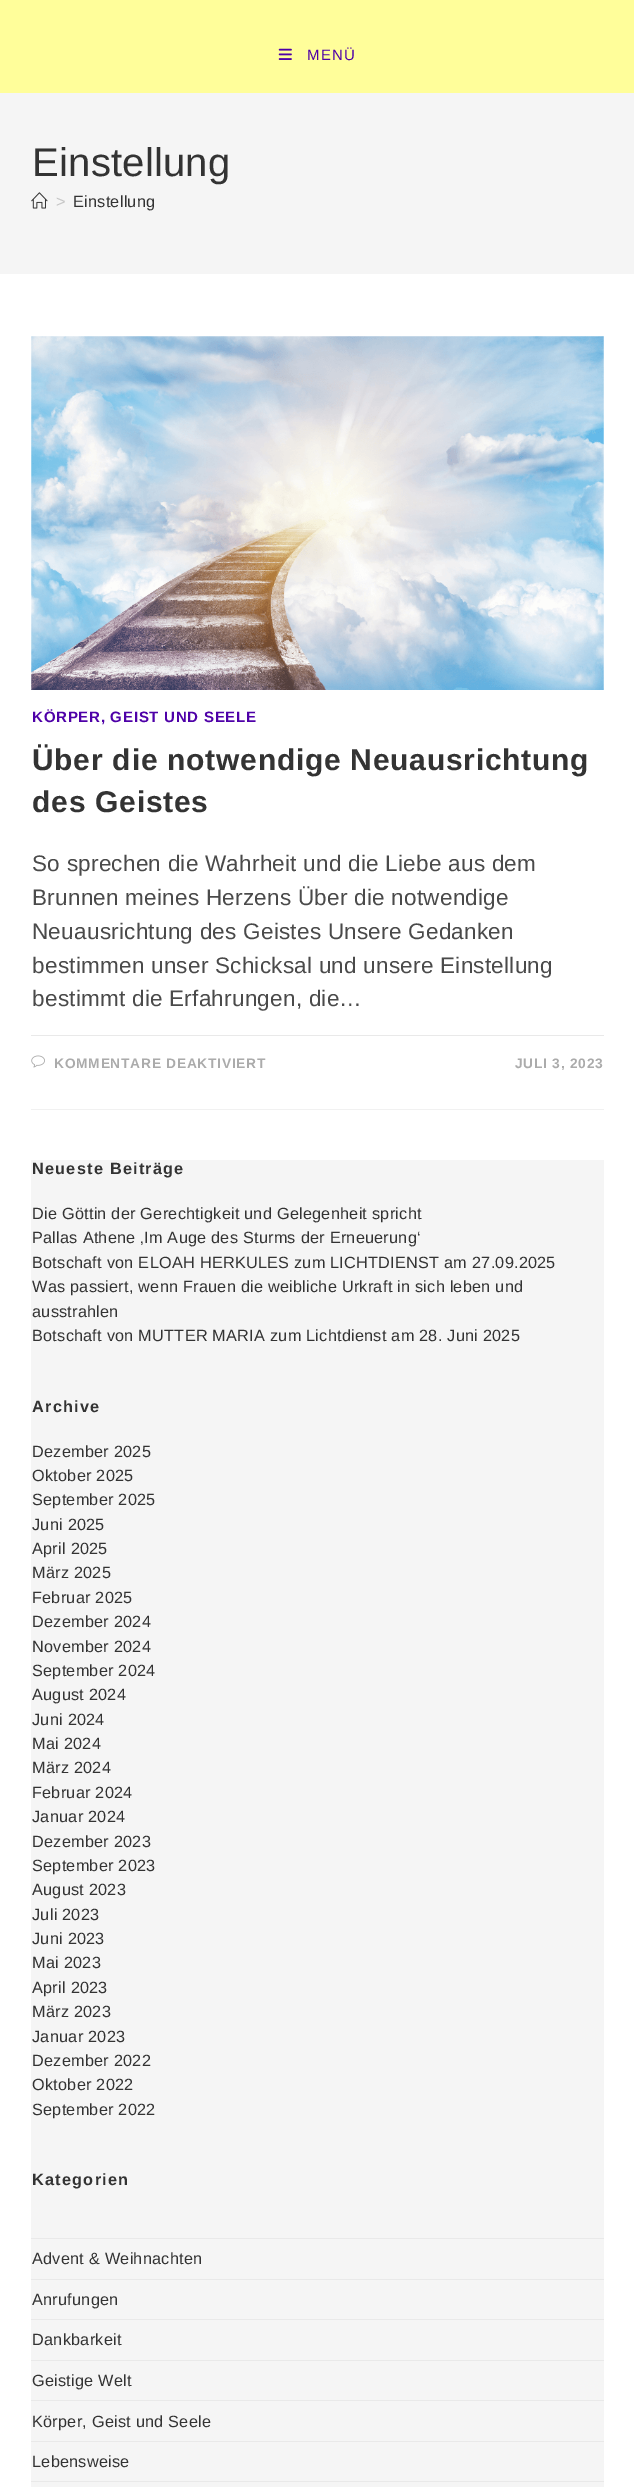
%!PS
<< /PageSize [634 2487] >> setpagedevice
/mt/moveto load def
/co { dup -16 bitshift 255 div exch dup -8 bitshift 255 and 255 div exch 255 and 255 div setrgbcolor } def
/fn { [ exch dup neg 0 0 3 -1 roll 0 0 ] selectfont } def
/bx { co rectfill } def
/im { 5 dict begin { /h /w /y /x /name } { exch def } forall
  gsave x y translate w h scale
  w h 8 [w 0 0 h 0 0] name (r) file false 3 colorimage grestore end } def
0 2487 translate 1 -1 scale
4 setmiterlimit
0 0 634 2487 16#FFFFFF bx
0 0 634 93 16#FFFE9A bx
(media/1.raw) 278 48 14 12 im
0 93 634 181 16#F5F5F5 bx
(media/2.raw) 31 192 17 17 im
31 1109 573 1 16#F1F1F1 bx
(media/3.raw) 31 336 573 354 im
31 1035 573 1 16#E9E9E9 bx
(media/4.raw) 31 1055 14 13 im
31 1160 573 1327 16#F5F5F5 bx
31 2238 573 1 16#E9E9E9 bx
31 2279 573 1 16#E9E9E9 bx
31 2319 573 1 16#E9E9E9 bx
31 2360 573 1 16#E9E9E9 bx
31 2400 573 1 16#E9E9E9 bx
31 2441 573 1 16#E9E9E9 bx
31 2481 573 1 16#E9E9E9 bx
/LiberationSans-Regular 15 fn
16#4E00A8 co
307 60 mt 1.25 0 (MENÜ) ashow
/LiberationSans-Regular 40 fn
16#333333 co
32 176 mt .25 0 (Einstellung) ashow
/LiberationSans-Regular 16.25 fn
16#C6C6C6 co
56 207 mt .25 0 (>) ashow
16#333333 co
73 207 mt .25 0 (Einstellung) ashow
/LiberationSans-Bold 15 fn
16#4E00A8 co
32 722 mt .75 0 (KÖRPER, GEIST UND SEELE) ashow
/LiberationSans-Bold 30 fn
16#333333 co
32 770 mt .75 0 (Über die notwendige Neuausrichtung) ashow
32 812 mt .75 0 (des Geistes) ashow
/LiberationSans-Regular 22.5 fn
16#4A4A4A co
32 871 mt .25 0 (So sprechen die Wahrheit und die Liebe aus dem) ashow
32 905 mt .25 0 (Brunnen meines Herzens Über die notwendige) ashow
32 939 mt .25 0 (Neuausrichtung des Geistes Unsere Gedanken) ashow
32 973 mt .25 0 (bestimmen unser Schicksal und unsere Einstellung) ashow
32 1006 mt .25 0 (bestimmt die Erfahrungen, die…) ashow
/LiberationSans-Bold 13.75 fn
16#ABABAB co
54 1068 mt .75 0 (KOMMENTARE DEAKTIVIERT) ashow
515 1068 mt .75 0 (JULI 3, 2023) ashow
/LiberationSans-Bold 16.25 fn
16#333333 co
32 1174 mt 1.25 0 (Neueste Beiträge) ashow
/LiberationSans-Regular 16.25 fn
32 1219 mt .25 0 (Die Göttin der Gerechtigkeit und Gelegenheit spricht) ashow
32 1243 mt .25 0 (Pallas Athene ‚Im Auge des Sturms der Erneuerung‘) ashow
32 1268 mt .25 0 (Botschaft von ELOAH HERKULES zum LICHTDIENST am 27.09.2025) ashow
32 1292 mt .25 0 (Was passiert, wenn Frauen die weibliche Urkraft in sich leben und) ashow
32 1317 mt .25 0 (ausstrahlen) ashow
32 1341 mt .25 0 (Botschaft von MUTTER MARIA zum Lichtdienst am 28. Juni 2025) ashow
/LiberationSans-Bold 16.25 fn
32 1412 mt 1.25 0 (Archive) ashow
/LiberationSans-Regular 16.25 fn
32 1457 mt .25 0 (Dezember 2025) ashow
32 1481 mt .25 0 (Oktober 2025) ashow
32 1505 mt .25 0 (September 2025) ashow
32 1530 mt .25 0 (Juni 2025) ashow
32 1554 mt .25 0 (April 2025) ashow
32 1578 mt .25 0 (März 2025) ashow
32 1603 mt .25 0 (Februar 2025) ashow
32 1627 mt .25 0 (Dezember 2024) ashow
32 1652 mt .25 0 (November 2024) ashow
32 1676 mt .25 0 (September 2024) ashow
32 1700 mt .25 0 (August 2024) ashow
32 1725 mt .25 0 (Juni 2024) ashow
32 1749 mt .25 0 (Mai 2024) ashow
32 1773 mt .25 0 (März 2024) ashow
32 1798 mt .25 0 (Februar 2024) ashow
32 1822 mt .25 0 (Januar 2024) ashow
32 1847 mt .25 0 (Dezember 2023) ashow
32 1871 mt .25 0 (September 2023) ashow
32 1895 mt .25 0 (August 2023) ashow
32 1920 mt .25 0 (Juli 2023) ashow
32 1944 mt .25 0 (Juni 2023) ashow
32 1968 mt .25 0 (Mai 2023) ashow
32 1993 mt .25 0 (April 2023) ashow
32 2017 mt .25 0 (März 2023) ashow
32 2042 mt .25 0 (Januar 2023) ashow
32 2066 mt .25 0 (Dezember 2022) ashow
32 2090 mt .25 0 (Oktober 2022) ashow
32 2115 mt .25 0 (September 2022) ashow
/LiberationSans-Bold 16.25 fn
32 2185 mt 1.25 0 (Kategorien) ashow
/LiberationSans-Regular 16.25 fn
32 2264 mt .25 0 (Advent & Weihnachten) ashow
32 2305 mt .25 0 (Anrufungen) ashow
32 2345 mt .25 0 (Dankbarkeit) ashow
32 2386 mt .25 0 (Geistige Welt) ashow
32 2427 mt .25 0 (Körper, Geist und Seele) ashow
32 2467 mt .25 0 (Lebensweise) ashow
showpage
